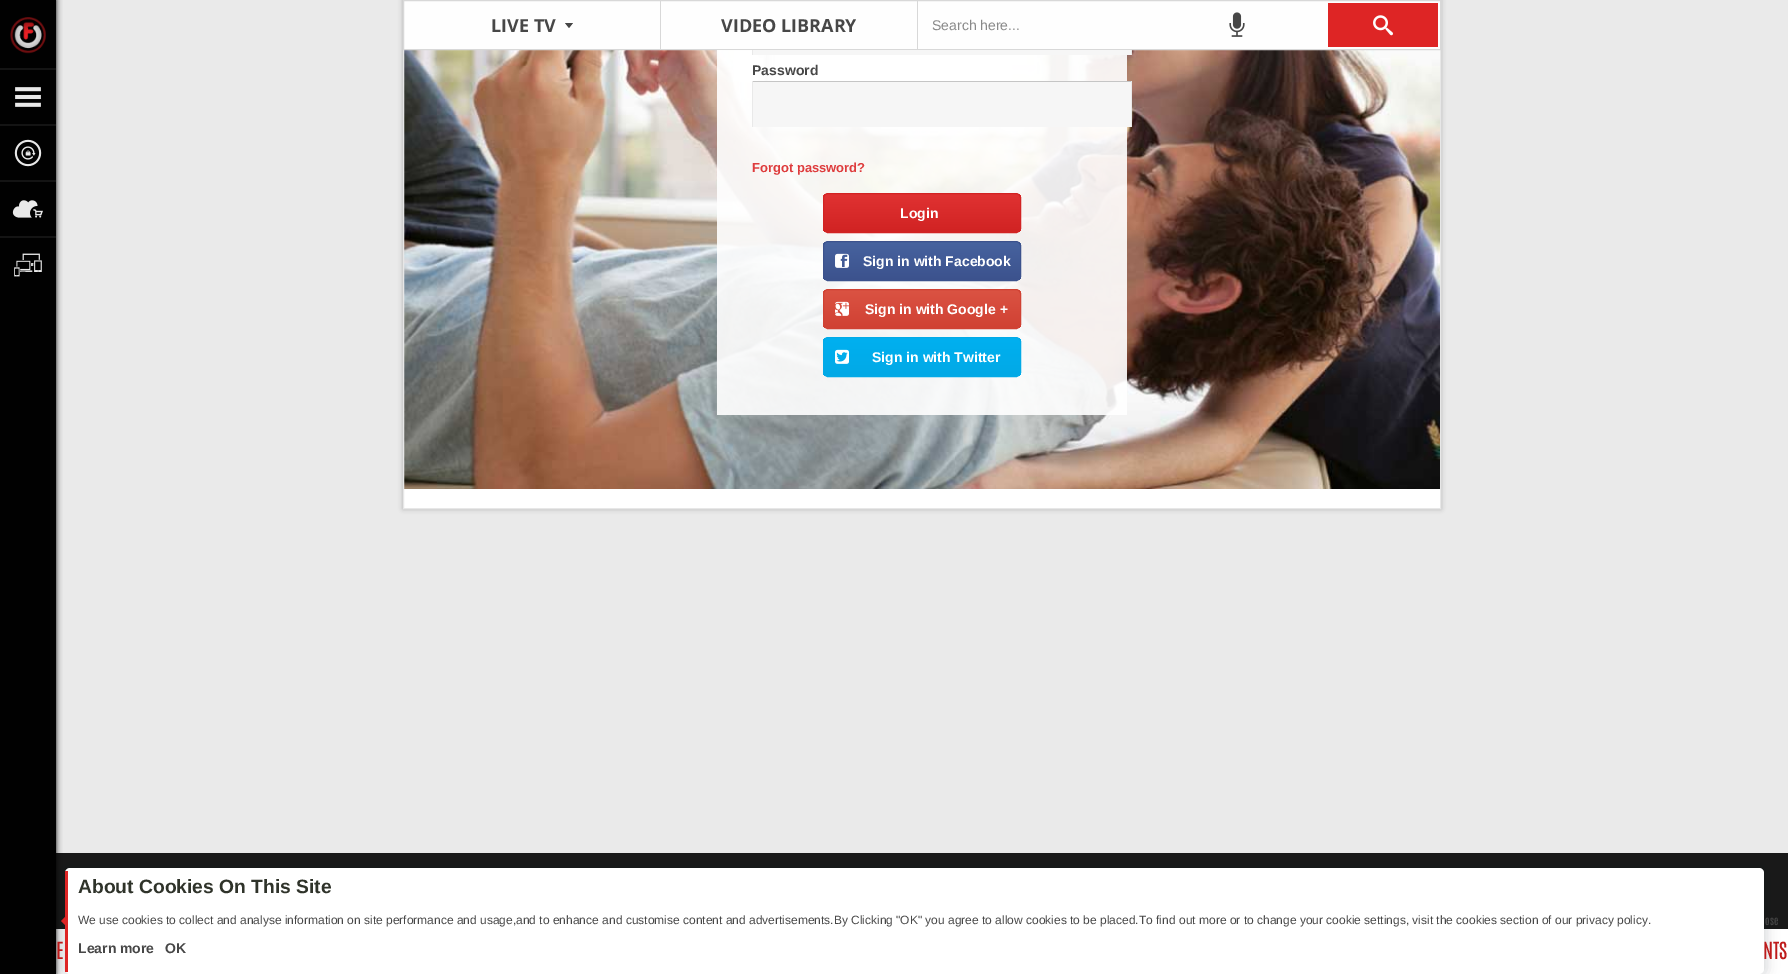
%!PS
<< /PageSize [1788 974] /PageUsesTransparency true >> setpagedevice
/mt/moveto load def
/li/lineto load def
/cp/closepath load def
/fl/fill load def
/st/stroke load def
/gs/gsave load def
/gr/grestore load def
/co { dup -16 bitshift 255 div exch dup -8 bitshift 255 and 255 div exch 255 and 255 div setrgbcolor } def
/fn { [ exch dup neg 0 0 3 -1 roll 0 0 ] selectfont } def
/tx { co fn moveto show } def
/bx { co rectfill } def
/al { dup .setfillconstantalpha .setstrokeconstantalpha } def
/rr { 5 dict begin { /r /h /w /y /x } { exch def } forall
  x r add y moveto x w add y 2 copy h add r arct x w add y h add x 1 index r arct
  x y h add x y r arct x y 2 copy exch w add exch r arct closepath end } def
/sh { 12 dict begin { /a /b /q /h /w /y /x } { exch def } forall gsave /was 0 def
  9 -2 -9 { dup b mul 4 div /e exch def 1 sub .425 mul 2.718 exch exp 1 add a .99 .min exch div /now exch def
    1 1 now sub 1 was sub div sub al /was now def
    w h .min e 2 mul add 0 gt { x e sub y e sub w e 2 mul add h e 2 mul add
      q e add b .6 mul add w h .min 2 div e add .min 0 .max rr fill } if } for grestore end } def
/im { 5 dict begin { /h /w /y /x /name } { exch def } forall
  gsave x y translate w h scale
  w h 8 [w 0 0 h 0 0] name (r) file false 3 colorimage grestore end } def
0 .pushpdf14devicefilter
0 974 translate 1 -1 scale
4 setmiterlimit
0 0 1788 974 16#EAEAEA bx
56 853 1732 76 16#191919 bx
56 929 1732 45 16#FFFFFF bx
16#000D1A co
62 865 1705 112 8 6 .15 sh
16#FFFFFF co
65 868 1699 106 5 rr fl
65 871 3 101 16#DE2525 bx
68 914 mt 68 928 li 61 921 li cp fl
16#010101 co
0 0 56 974 0 3 1 sh
0 0 56 974 16#010101 bx
(media/1.raw) 10 17 36 37 im
0 68 56 2 16#141414 bx
(media/2.raw) 15 87 26 20 im
0 124 56 2 16#141414 bx
(media/3.raw) 14 139 28 28 im
0 180 56 2 16#141414 bx
(media/4.raw) 12 200 31 18 im
0 236 56 2 16#141414 bx
(media/5.raw) 14 253 28 24 im
16#000000 co
403 -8 1038 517 0 2.5 .25 sh
404 489 1036 19 16#FFFFFF bx
(media/8.raw) 404 50 1036 439 im
16#E7E7E7 co
403.5 -.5 1037 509 rectstroke
16#FEFEFE co
403.5 .5 mt 1440.5 .5 li 1440.5 49.5 li 403.5 49.5 li cp gs fl gr
16#D8D8D8 co
st
16#474747 co
565 23 mt 573 23 li 569 28 li cp fl
660 1 1 48 16#D8D8D8 bx
917 1 1 48 16#D8D8D8 bx
(media/6.raw) 1229 12 16 25 im
1328 3 110 44 16#DE2525 bx
(media/7.raw) 1373 15 20 21 im
0.9 al
717 50 410 365 16#FFFFFF bx
1 al
753 50 378 5 16#F6F6F6 bx
1131 50 1 5 16#E9E9E9 bx
752 50 1 5 16#E9E9E9 bx
753 82 378 45 16#F6F6F6 bx
752 81 380 1 16#C5C5C5 bx
1131 81 1 46 16#E9E9E9 bx
752 81 1 46 16#E9E9E9 bx
gs
823 193 198 40 5 rr clip newpath
gs 823 194 mt 1021 194 li 1021 232 li 823 232 li cp clip newpath
<< /ShadingType 2 /ColorSpace /DeviceRGB /Coords [922 194 922 232] /Extend [true true] /Function << /FunctionType 2 /Domain [0 1] /C0 [.878 .196 .196] /C1 [.82 .137 .137] /N 1 >> >> shfill gr
gr
16#D22323 co
823.5 193.5 197 39 4.5 rr st
gs
823 241 198 40 5 rr clip newpath
gs 823 242 mt 1021 242 li 1021 280 li 823 280 li cp clip newpath
<< /ShadingType 2 /ColorSpace /DeviceRGB /Coords [922 242 922 280] /Extend [true true] /Function << /FunctionType 2 /Domain [0 1] /C0 [.278 .388 .624] /C1 [.235 .322 .553] /N 1 >> >> shfill gr
gr
16#3C528D co
823.5 241.5 197 39 4.5 rr st
(media/9.raw) 835 253 14 15 im
gs
823 289 198 40 5 rr clip newpath
gs 823 290 mt 1021 290 li 1021 328 li 823 328 li cp clip newpath
<< /ShadingType 2 /ColorSpace /DeviceRGB /Coords [922 290 922 328] /Extend [true true] /Function << /FunctionType 2 /Domain [0 1] /C0 [.859 .325 .263] /C1 [.816 .255 .2] /N 1 >> >> shfill gr
gr
16#D04133 co
823.5 289.5 197 39 4.5 rr st
(media/10.raw) 835 301 14 15 im
gs
823 337 198 40 5 rr clip newpath
gs 823 338 mt 1021 338 li 1021 376 li 823 376 li cp clip newpath
<< /ShadingType 2 /ColorSpace /DeviceRGB /Coords [922 338 922 376] /Extend [true true] /Function << /FunctionType 2 /Domain [0 1] /C0 [0 .69 .941] /C1 [.008 .663 .902] /N 1 >> >> shfill gr
gr
16#02AAE7 co
823.5 337.5 197 39 4.5 rr st
(media/11.raw) 835 349 14 15 im
(LIVE TV) 491 32 /OpenSans-Bold 18 16#474747 tx
(VIDEO LIBRARY) 721 32 /OpenSans-Bold 18 16#474747 tx
(Search here...) 932 30 /LiberationSans-Regular 14 16#898989 tx
(Password) 752 75 /LiberationSans-Bold 14 16#474747 tx
(Forgot password?) 752 172 /LiberationSans-Bold 13 16#DE3C3D tx
(Login) 900 218 /LiberationSans-Bold 14 16#FFFFFF tx
(Sign in with Facebook) 863 266 /LiberationSans-Bold 14 16#FFFFFF tx
(Sign in with Google +) 865 314 /LiberationSans-Bold 14 16#FFFFFF tx
(Sign in with Twitter) 872 362 /LiberationSans-Bold 14 16#FFFFFF tx
(About Cookies On This Site) 78 893 /LiberationSans-Bold 19.25 16#2F332A tx
(We use cookies to collect and analyse information on site performance and usage,and to enhance and customise content and advertisements.By Clicking "OK" you agree to allow cookies to be placed.To find out more or to change your cookie settings, visit the cookies section of our privacy policy.) 78 924 /LiberationSans-Regular 12 16#474747 tx
(Learn more) 78 953 /LiberationSans-Bold 14 16#474747 tx
(OK) 165 953 /LiberationSans-Bold 14 16#474747 tx
(ose) 1765 925 /Antonio-Medium 10 16#474747 tx
(E) 56 959 /Antonio-Medium 20 16#BE1B1B tx
(NTS) 1763 959 /Antonio-Medium 20 16#BE1B1B tx
.poppdf14devicefilter showpage
